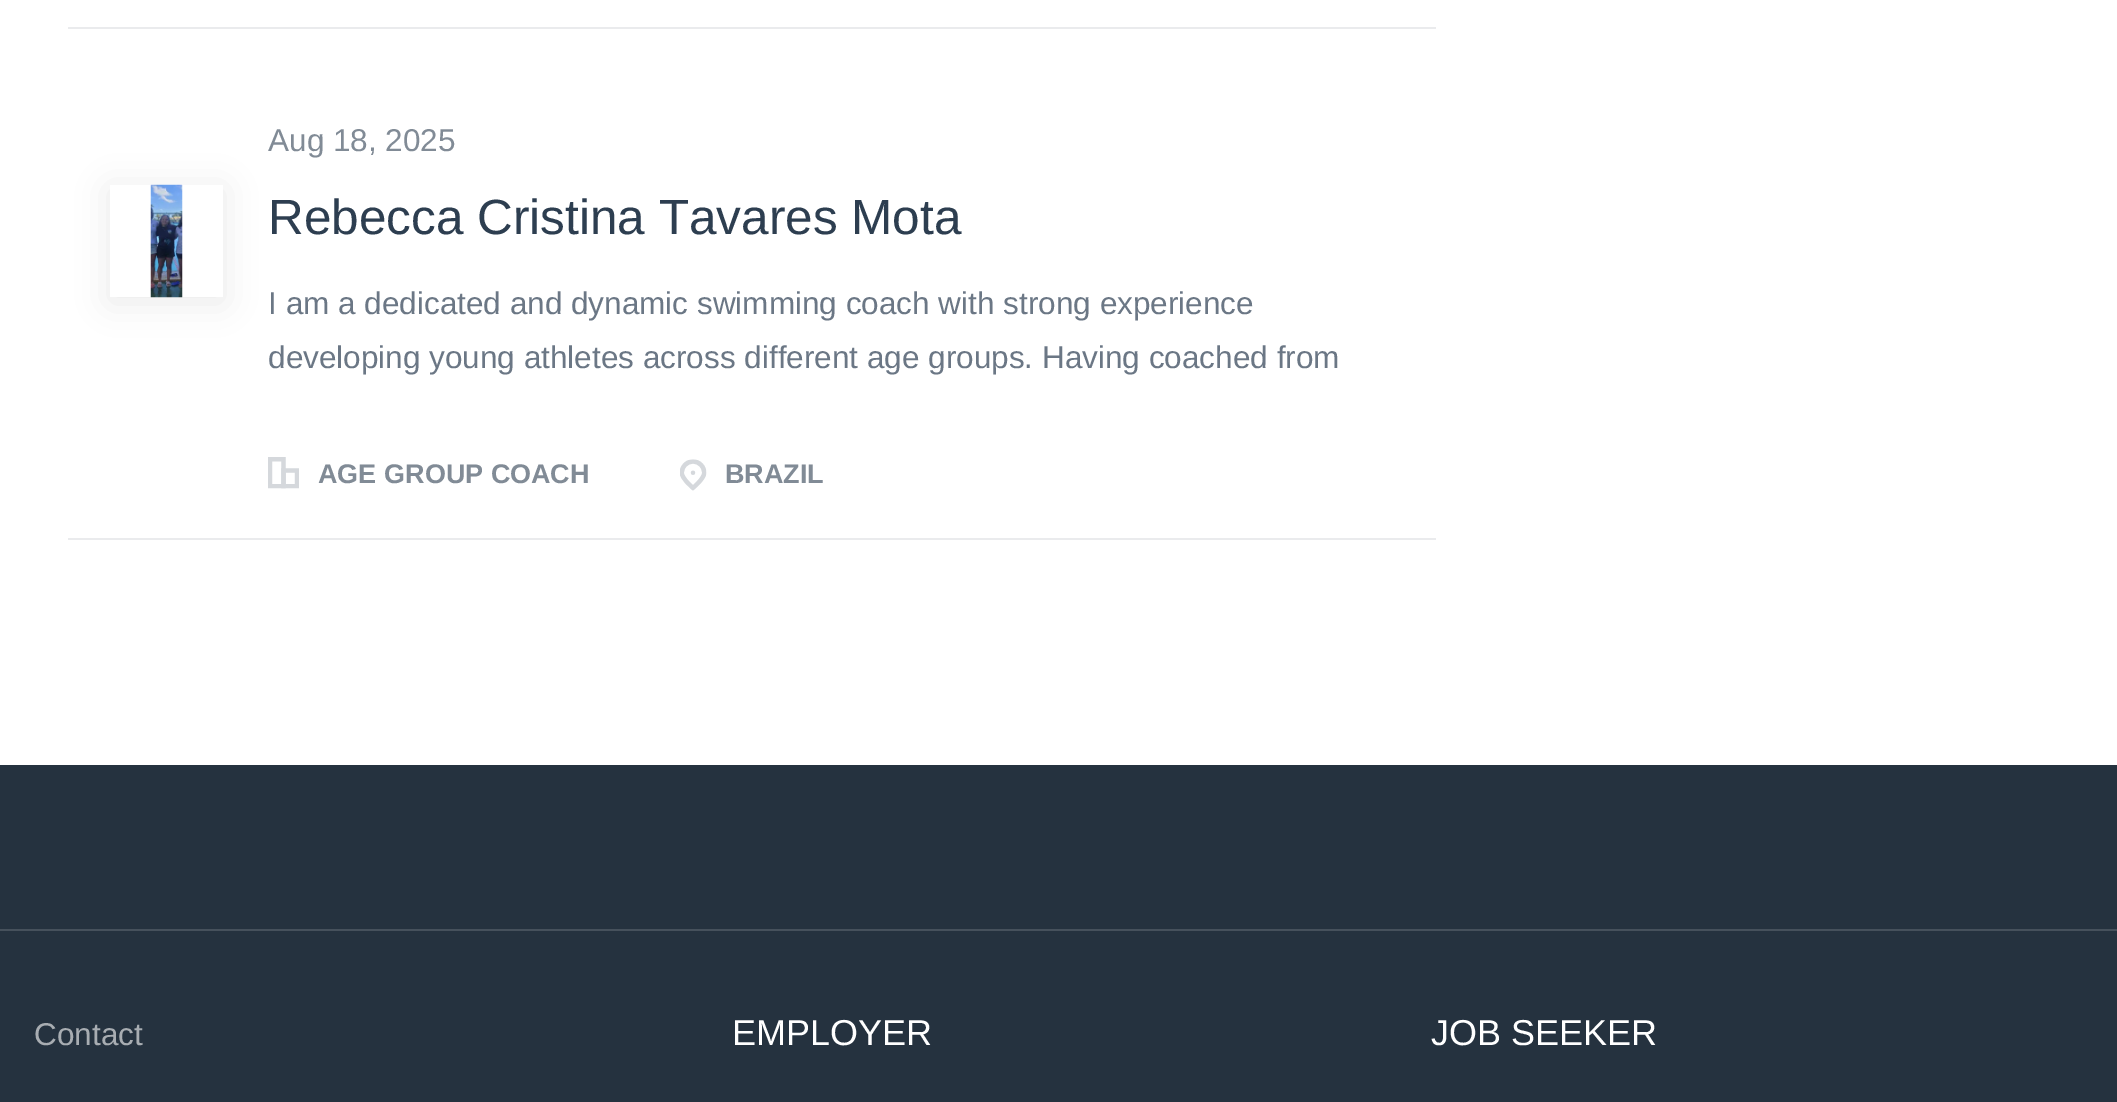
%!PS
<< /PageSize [2117 1102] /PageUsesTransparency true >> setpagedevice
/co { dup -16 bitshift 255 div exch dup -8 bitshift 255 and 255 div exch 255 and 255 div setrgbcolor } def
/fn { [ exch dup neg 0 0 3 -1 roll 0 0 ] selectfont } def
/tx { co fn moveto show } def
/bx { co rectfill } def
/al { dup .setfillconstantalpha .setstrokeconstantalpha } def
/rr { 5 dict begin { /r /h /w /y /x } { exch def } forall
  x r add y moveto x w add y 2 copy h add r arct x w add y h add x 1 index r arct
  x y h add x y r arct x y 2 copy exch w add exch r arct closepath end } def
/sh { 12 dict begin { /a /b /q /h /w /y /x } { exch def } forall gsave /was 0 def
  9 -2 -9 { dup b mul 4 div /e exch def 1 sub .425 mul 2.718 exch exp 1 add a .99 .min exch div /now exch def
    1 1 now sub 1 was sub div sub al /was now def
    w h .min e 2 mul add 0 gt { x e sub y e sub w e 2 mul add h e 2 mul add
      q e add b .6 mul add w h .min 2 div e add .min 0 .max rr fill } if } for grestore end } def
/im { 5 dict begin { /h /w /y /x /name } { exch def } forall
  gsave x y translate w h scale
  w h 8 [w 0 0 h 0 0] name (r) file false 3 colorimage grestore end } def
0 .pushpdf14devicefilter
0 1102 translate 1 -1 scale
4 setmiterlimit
0 0 2117 1102 16#FFFFFF bx
68 27 1368 2 16#EAEBED bx
68 538 1368 2 16#EAEBED bx
16#000000 co
110 189 113 113 0 16 .08 sh
110 185 113 112 16#FFFFFF bx
(media/1.raw) 150 184 33 114 im
(media/2.raw) 268 457 31 32 im
(media/3.raw) 680 459 27 32 im
0 765 2117 337 16#25323F bx
0 929 2117 2 16#46515C bx
(Aug 18, 2025) 268 151 /LiberationSans-Regular 31.5 16#818B96 tx
(Rebecca Cristina Tavares Mota) 268 234 /LiberationSans-Regular 49.5 16#2D3E50 tx
(I am a dedicated and dynamic swimming coach with strong experience) 268 314 /LiberationSans-Regular 31.5 16#6B7785 tx
(developing young athletes across different age groups. Having coached from) 268 368 /LiberationSans-Regular 31.5 16#6B7785 tx
(AGE GROUP COACH) 318 483 /LiberationSans-Bold 27 16#818B96 tx
(BRAZIL) 725 483 /LiberationSans-Bold 27 16#818B96 tx
(Contact) 34 1045 /LiberationSans-Regular 31.5 16#A8ADB2 tx
(EMPLOYER) 732 1045 /LiberationSans-Regular 36 16#FFFFFF tx
(JOB SEEKER) 1431 1045 /LiberationSans-Regular 36 16#FFFFFF tx
.poppdf14devicefilter showpage
